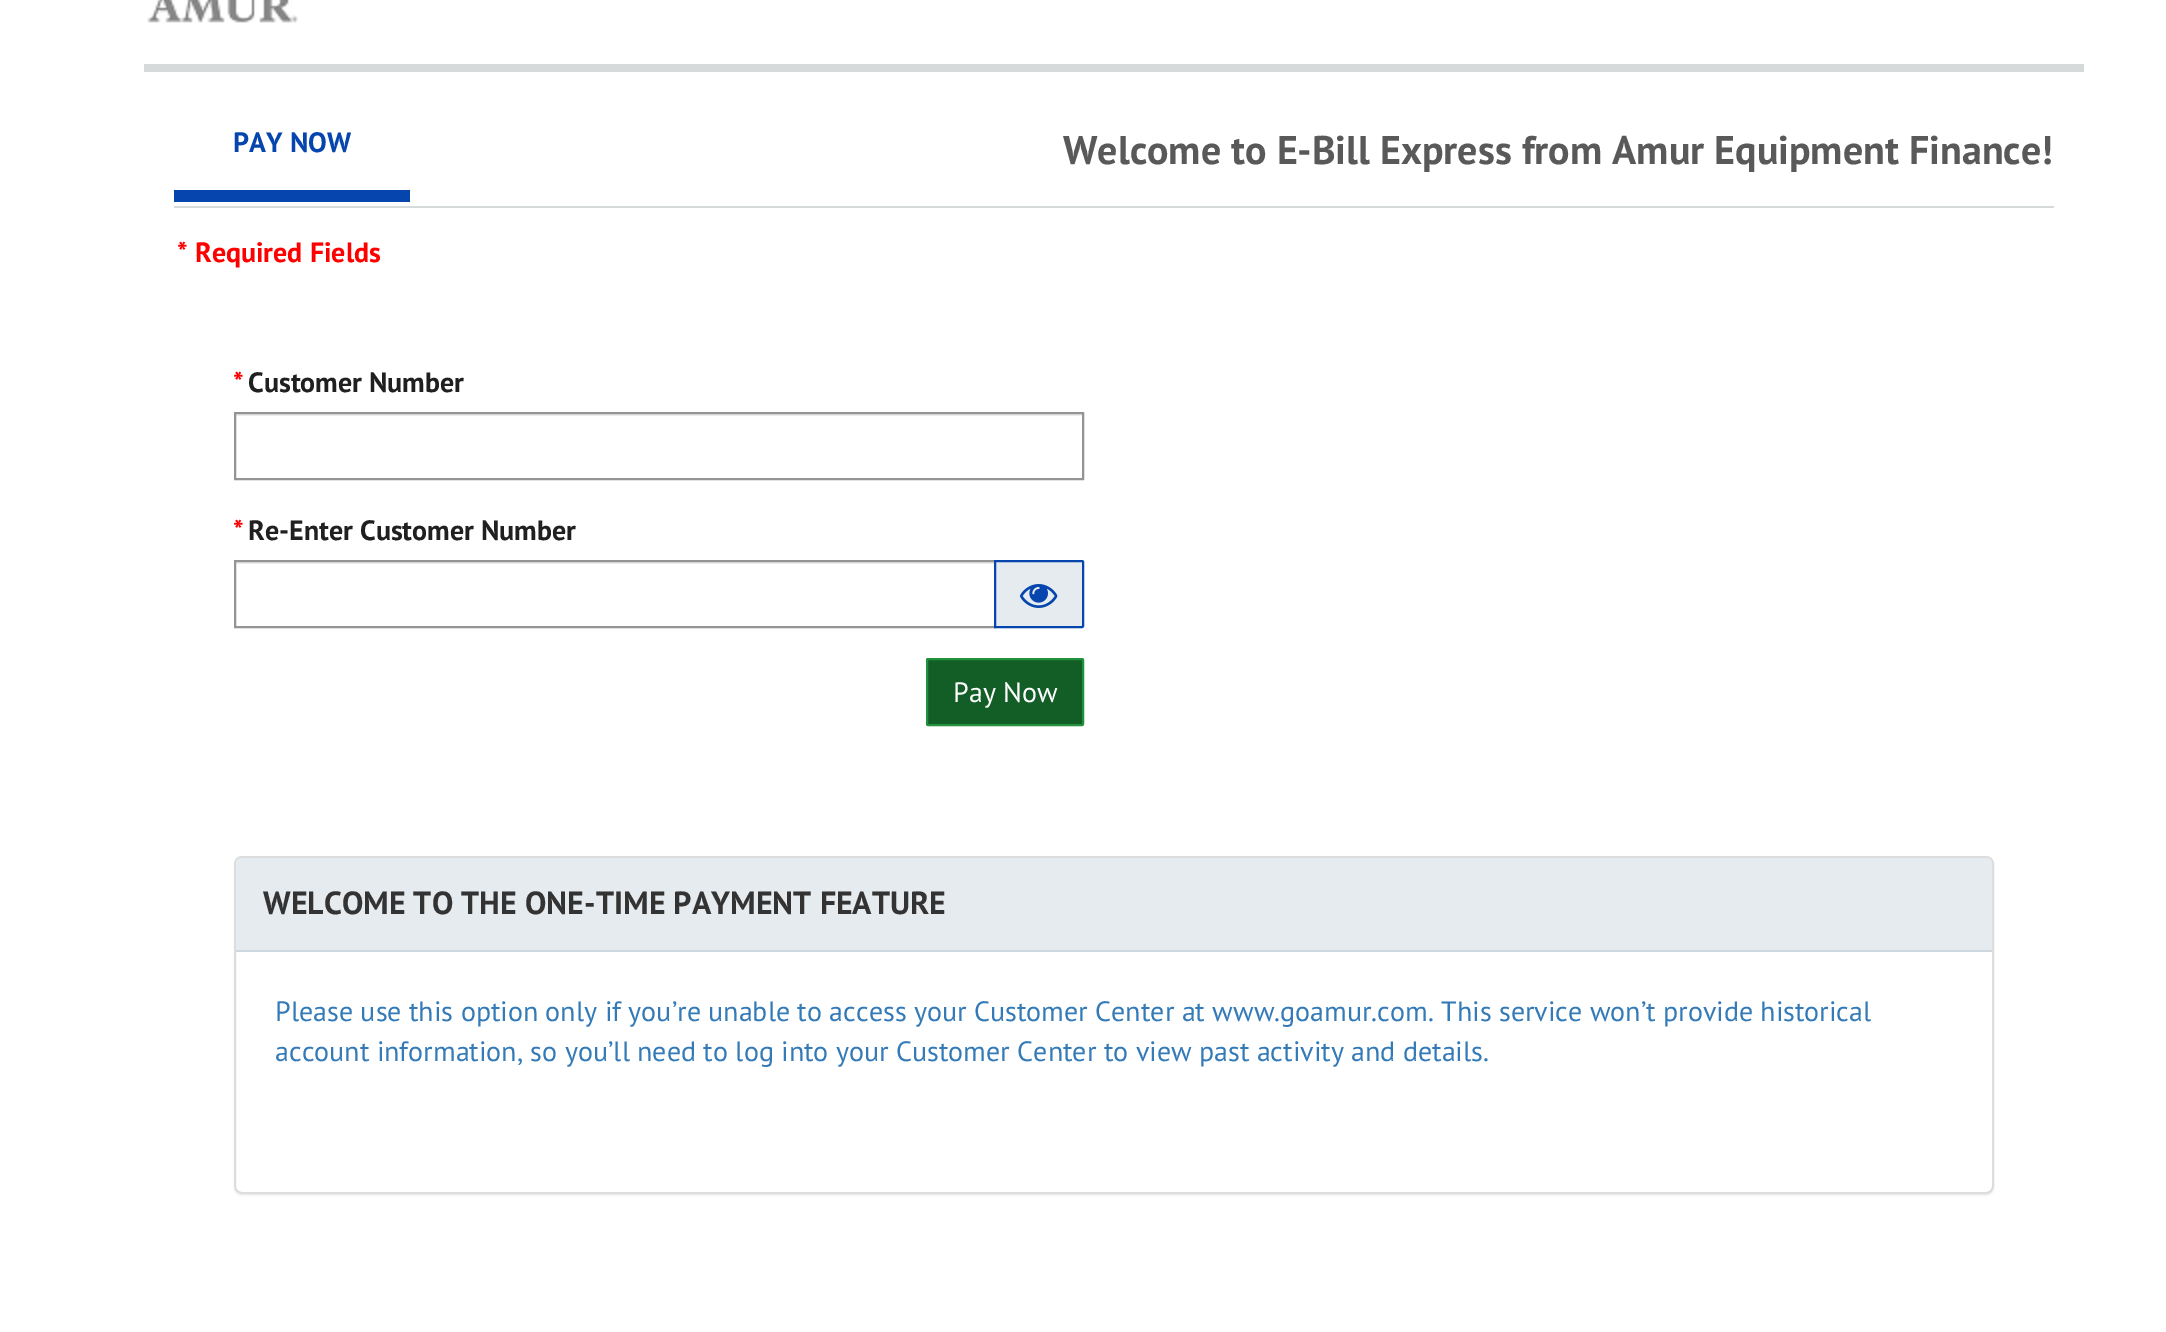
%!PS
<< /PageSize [2166 1332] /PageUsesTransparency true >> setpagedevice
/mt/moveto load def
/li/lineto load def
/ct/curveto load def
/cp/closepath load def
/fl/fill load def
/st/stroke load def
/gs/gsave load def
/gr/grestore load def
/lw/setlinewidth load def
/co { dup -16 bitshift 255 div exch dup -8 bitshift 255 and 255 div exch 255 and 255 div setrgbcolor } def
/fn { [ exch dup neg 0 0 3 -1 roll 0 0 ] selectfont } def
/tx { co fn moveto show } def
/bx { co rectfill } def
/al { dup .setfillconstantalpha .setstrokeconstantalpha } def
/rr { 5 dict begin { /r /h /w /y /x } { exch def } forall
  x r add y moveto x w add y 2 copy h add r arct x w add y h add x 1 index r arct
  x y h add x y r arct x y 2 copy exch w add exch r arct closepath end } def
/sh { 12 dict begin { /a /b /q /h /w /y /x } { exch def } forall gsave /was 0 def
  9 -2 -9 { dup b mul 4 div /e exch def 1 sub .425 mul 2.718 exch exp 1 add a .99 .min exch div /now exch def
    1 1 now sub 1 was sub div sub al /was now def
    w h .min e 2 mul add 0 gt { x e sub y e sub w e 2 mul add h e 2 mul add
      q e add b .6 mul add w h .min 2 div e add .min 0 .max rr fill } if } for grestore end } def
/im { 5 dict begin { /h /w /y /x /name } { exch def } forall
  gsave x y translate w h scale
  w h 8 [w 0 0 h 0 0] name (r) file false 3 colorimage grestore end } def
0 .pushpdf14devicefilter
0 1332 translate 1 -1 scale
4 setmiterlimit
0 0 2166 1332 16#FFFFFF bx
(media/1.raw) 147 0 151 23 im
144 64 1940 8 16#D6DADA bx
174 206 1880 2 16#D6DADA bx
174 190 236 12 16#0645AD bx
236 414 846 2 16#ECECEC bx
16#949494 co
2 lw
235 413 848 66 rectstroke
236 562 758 2 16#ECECEC bx
16#949494 co
235 561 760 66 rectstroke
16#E6EBEF co
995 561 mt 1082 561 li 1082.5 561 1083 561.5 1083 562 ct 1083 626 li 1083 626.5 1082.5 627 1082 627 ct 995 627 li cp gs fl gr
16#0645AD co
st
(media/2.raw) 1020 584 38 24 im
16#135E27 co
927 659 156 66 1 rr gs fl gr
16#21913C co
st
16#000000 co
234 858 1760 338 8 1 .05 sh
16#FFFFFF co
235 857 1758 336 7 rr gs fl gr
16#DDDDDD co
st
16#E6EBEF co
242 858 mt 1986 858 li 1989.5 858 1992 860.5 1992 864 ct 1992 952 li 236 952 li 236 864 li 236 860.5 238.5 858 242 858 ct cp fl
236 950 1756 2 16#CCD7DF bx
(PAY NOW) 233 152 /PTSans-Bold 28 16#0645AD tx
(Welcome to E-Bill Express from Amur Equipment Finance!) 1063 164 /PTSans-Bold 40 16#595959 tx
(* Required Fields) 177 262 /PTSans-Bold 28 16#FF0000 tx
(*) 233 392 /PTSans-Bold 28 16#FF0000 tx
(Customer Number) 248 392 /PTSans-Bold 28 16#202020 tx
(*) 233 540 /PTSans-Bold 28 16#FF0000 tx
(Re-Enter Customer Number) 248 540 /PTSans-Bold 28 16#202020 tx
(Pay Now) 953 702 /PTSans-Regular 28 16#FFFFFF tx
(WELCOME TO THE ONE-TIME PAYMENT FEATURE) 263 914 /PTSans-Bold 32 16#333333 tx
(Please use this option only if you’re unable to access your Customer Center at www.goamur.com. This service won’t provide historical) 275 1021 /PTSans-Regular 28 16#337AB7 tx
(account information, so you’ll need to log into your Customer Center to view past activity and details.) 275 1061 /PTSans-Regular 28 16#337AB7 tx
.poppdf14devicefilter showpage
